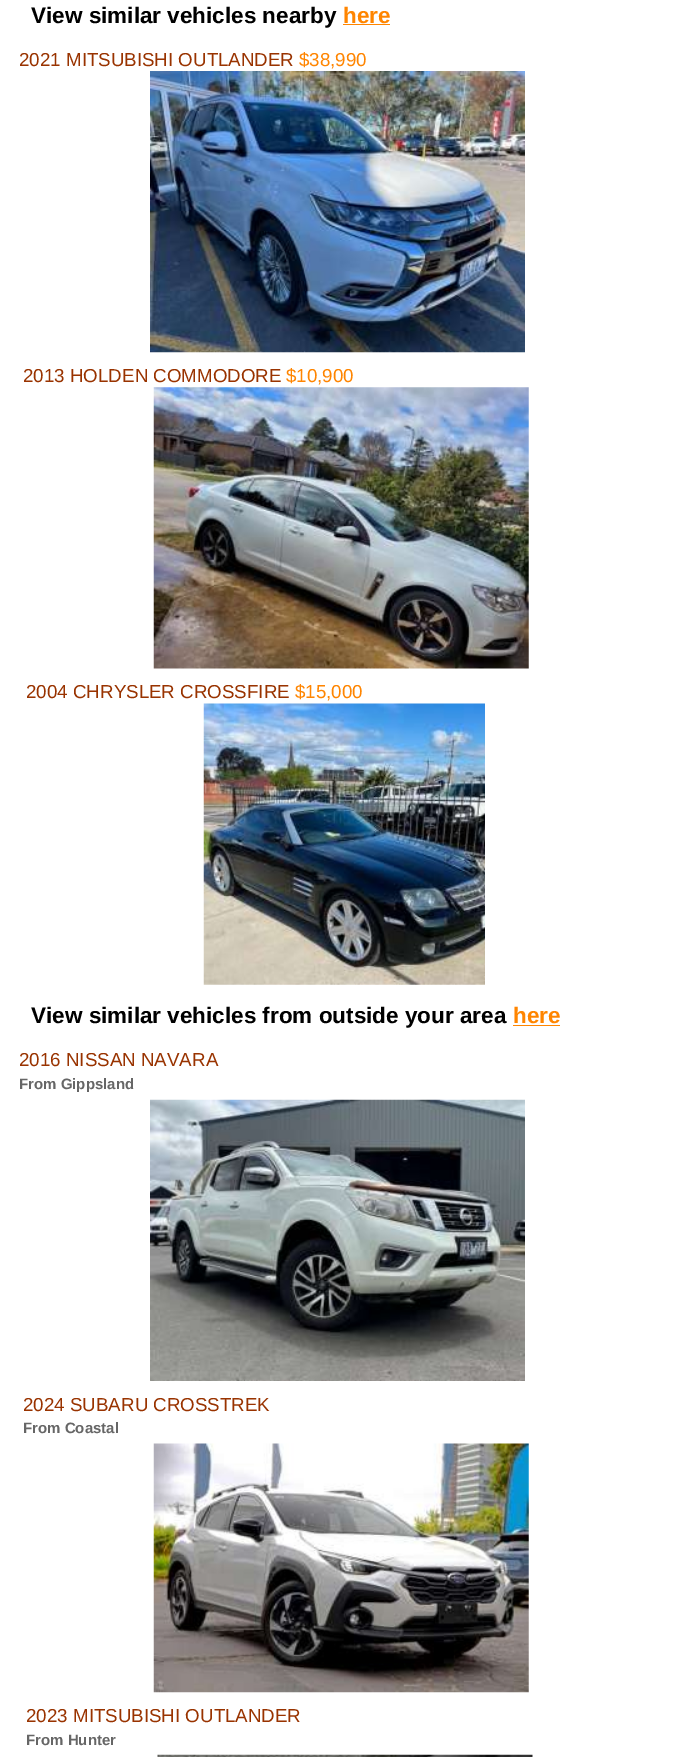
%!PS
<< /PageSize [681 1757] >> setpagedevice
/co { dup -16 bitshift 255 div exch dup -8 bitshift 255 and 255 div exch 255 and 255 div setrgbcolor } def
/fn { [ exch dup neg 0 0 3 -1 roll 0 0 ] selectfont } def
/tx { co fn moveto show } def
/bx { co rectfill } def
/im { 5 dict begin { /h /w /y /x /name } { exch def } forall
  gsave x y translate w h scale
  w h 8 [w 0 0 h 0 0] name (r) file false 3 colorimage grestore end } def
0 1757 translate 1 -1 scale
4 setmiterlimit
0 0 681 1757 16#FFFFFF bx
343 24 47 1 16#FF8500 bx
(media/1.raw) 150 71 375 282 im
(media/2.raw) 153 387 376 282 im
(media/3.raw) 203 703 282 282 im
513 1025 47 1 16#FF8500 bx
(media/4.raw) 150 1099 375 282 im
(media/5.raw) 153 1443 376 250 im
(media/6.raw) 157 1754 376 3 im
(View similar vehicles nearby) 31 23 /LiberationSans-Bold 22.5 16#000000 tx
(here) 343 23 /LiberationSans-Bold 22.5 16#FF8500 tx
(2021 MITSUBISHI OUTLANDER) 19 66 /LiberationSans-Regular 18.75 16#993300 tx
($38,990) 299 66 /LiberationSans-Regular 18.75 16#FF8500 tx
(2013 HOLDEN COMMODORE) 23 382 /LiberationSans-Regular 18.75 16#993300 tx
($10,900) 286 382 /LiberationSans-Regular 18.75 16#FF8500 tx
(2004 CHRYSLER CROSSFIRE) 26 698 /LiberationSans-Regular 18.75 16#993300 tx
($15,000) 295 698 /LiberationSans-Regular 18.75 16#FF8500 tx
(View similar vehicles from outside your area) 31 1023 /LiberationSans-Bold 22.5 16#000000 tx
(here) 513 1023 /LiberationSans-Bold 22.5 16#FF8500 tx
(2016 NISSAN NAVARA) 19 1066 /LiberationSans-Regular 18.75 16#993300 tx
(From Gippsland) 19 1089 /LiberationSans-Bold 15 16#666666 tx
(2024 SUBARU CROSSTREK) 23 1411 /LiberationSans-Regular 18.75 16#993300 tx
(From Coastal) 23 1433 /LiberationSans-Bold 15 16#666666 tx
(2023 MITSUBISHI OUTLANDER) 26 1722 /LiberationSans-Regular 18.75 16#993300 tx
(From Hunter) 26 1745 /LiberationSans-Bold 15 16#666666 tx
showpage
